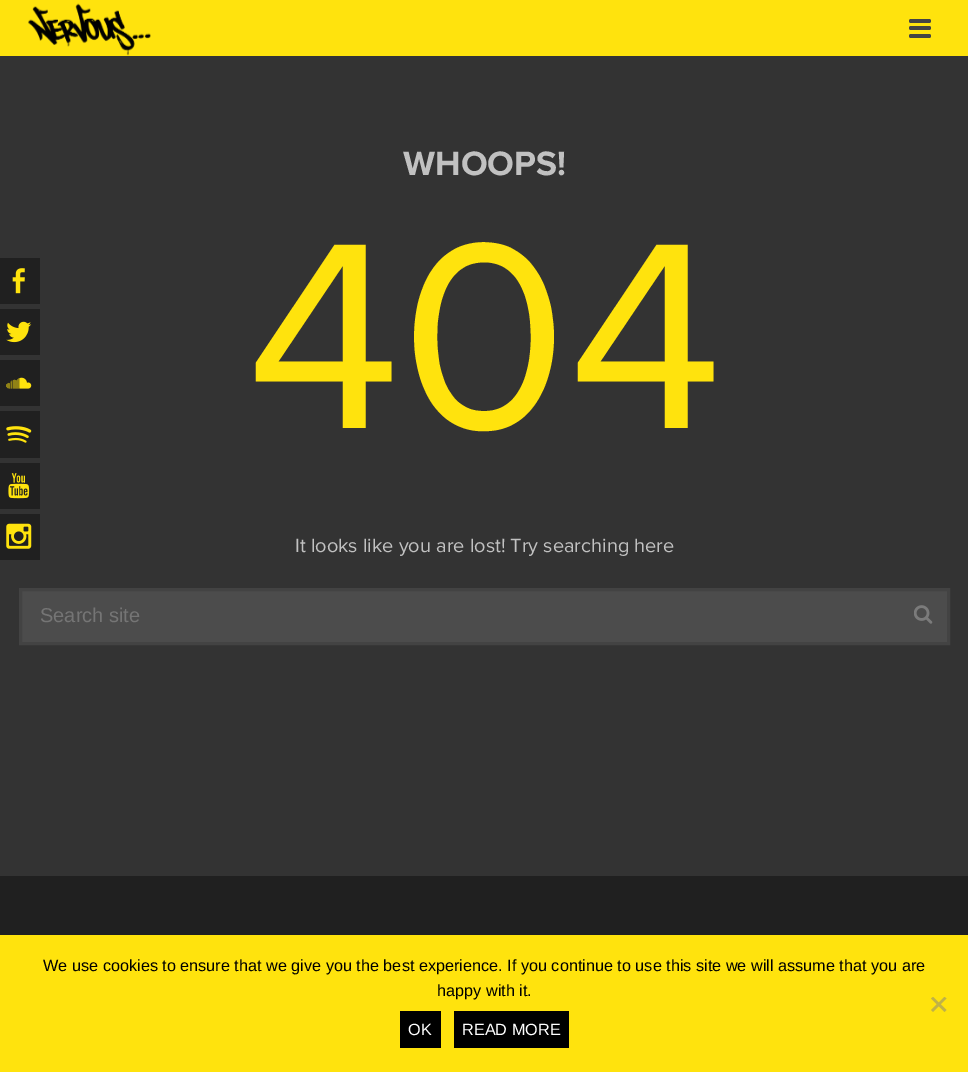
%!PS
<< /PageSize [968 1072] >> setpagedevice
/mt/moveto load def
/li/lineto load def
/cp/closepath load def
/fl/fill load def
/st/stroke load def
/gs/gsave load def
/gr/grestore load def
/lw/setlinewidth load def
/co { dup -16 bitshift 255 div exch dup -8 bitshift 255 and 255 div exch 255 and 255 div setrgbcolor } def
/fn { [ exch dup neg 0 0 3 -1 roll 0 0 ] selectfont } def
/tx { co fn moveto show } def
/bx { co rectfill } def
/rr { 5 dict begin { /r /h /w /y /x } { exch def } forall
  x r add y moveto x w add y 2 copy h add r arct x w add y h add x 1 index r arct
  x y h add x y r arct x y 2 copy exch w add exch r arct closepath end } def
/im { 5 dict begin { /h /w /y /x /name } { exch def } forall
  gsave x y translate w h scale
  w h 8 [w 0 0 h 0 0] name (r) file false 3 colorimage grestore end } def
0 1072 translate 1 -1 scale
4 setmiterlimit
0 0 968 1072 16#333333 bx
0 258 40 46 16#202020 bx
(media/1.raw) 12 268 13 26 im
0 309 40 46 16#202020 bx
(media/2.raw) 6 321 26 22 im
0 360 40 46 16#202020 bx
(media/3.raw) 6 377 26 12 im
0 411 40 47 16#202020 bx
(media/4.raw) 6 426 26 17 im
0 463 40 46 16#202020 bx
(media/5.raw) 8 473 22 26 im
0 514 40 46 16#202020 bx
(media/6.raw) 6 523 26 26 im
0 0 968 56 16#FFE30D bx
(media/7.raw) 28 3 123 53 im
16#444444 co
909 19 22 4 2 rr fl
909 26 22 4 2 rr fl
909 34 22 4 2 rr fl
16#4C4C4C co
20.5 589.5 mt 948.5 589.5 li 948.5 643.5 li 20.5 643.5 li cp gs fl gr
16#434343 co
3 lw
st
(media/8.raw) 914 605 19 19 im
0 876 968 59 16#202020 bx
0 935 968 137 16#FFE30D bx
16#C0B247 co
944.5 997 mt 946.5 998.5 li 933 1012 li 931 1010 li cp fl
931 998.5 mt 933 997 li 946.5 1010 li 944.5 1012 li cp fl
400 1011 41 37 16#000000 bx
454 1011 115 37 16#000000 bx
(WHOOPS!) 403 175 /ProximaNova-Bold 35 16#C1C1C1 tx
(404) 247 428 /ProximaNova-Regular 275 16#FFE30D tx
(It looks like you are lost! Try searching here) 295 552 /ProximaNova-Regular 20 16#C1C1C1 tx
(Search site) 40 622 /LiberationSans-Regular 20 16#757575 tx
(We use cookies to ensure that we give you the best experience. If you continue to use this site we will assume that you are) 43 971 /LiberationSans-Regular 16.25 16#000000 tx
(happy with it.) 437 996 /LiberationSans-Regular 16.25 16#000000 tx
(OK) 408 1035 /LiberationSans-Regular 16.25 16#FFFFFF tx
(READ MORE) 462 1035 /LiberationSans-Regular 16.25 16#FFFFFF tx
showpage
